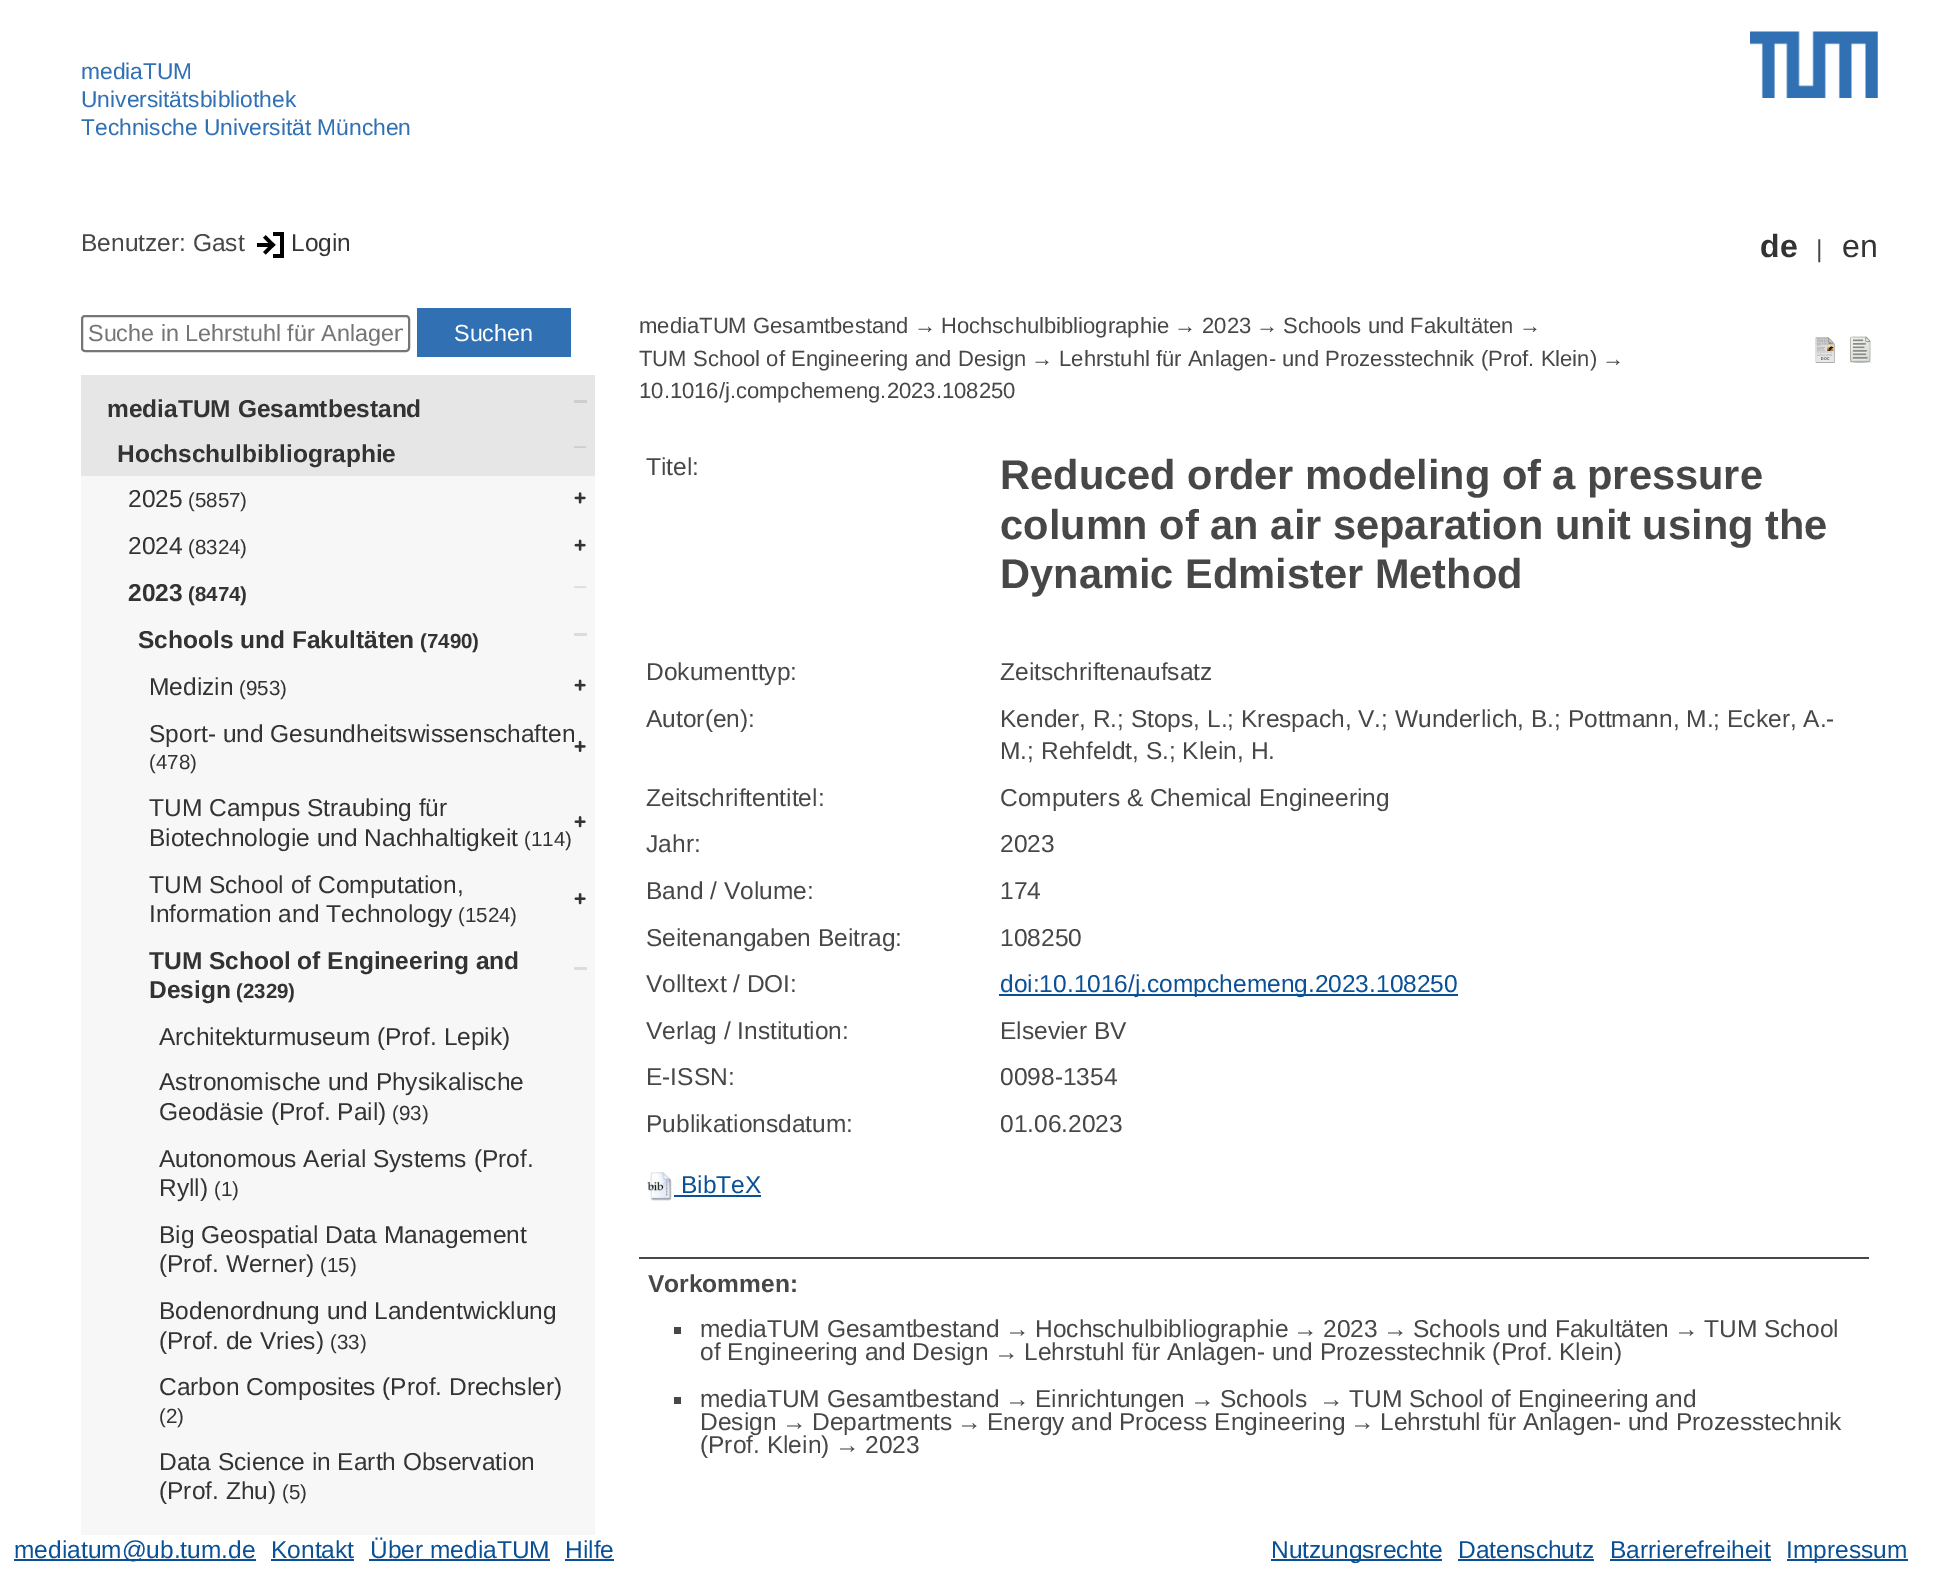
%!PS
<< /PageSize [1957 1583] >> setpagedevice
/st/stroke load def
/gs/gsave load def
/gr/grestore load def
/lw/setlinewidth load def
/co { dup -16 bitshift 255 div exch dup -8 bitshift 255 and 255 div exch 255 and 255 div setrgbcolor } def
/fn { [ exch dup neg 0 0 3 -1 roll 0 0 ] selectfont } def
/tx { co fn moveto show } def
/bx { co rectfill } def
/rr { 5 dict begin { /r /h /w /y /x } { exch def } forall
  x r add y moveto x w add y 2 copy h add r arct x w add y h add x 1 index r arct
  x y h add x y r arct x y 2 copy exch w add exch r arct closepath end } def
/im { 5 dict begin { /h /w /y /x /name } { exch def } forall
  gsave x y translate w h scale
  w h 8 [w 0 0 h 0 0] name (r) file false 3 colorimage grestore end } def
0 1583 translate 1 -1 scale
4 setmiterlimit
0 0 1957 1583 16#FFFFFF bx
(media/1.raw) 1750 31 128 67 im
(media/2.raw) 257 232 27 26 im
16#767676 co
2 lw
82 316 327 35 3 rr st
417 308 154 49 16#3070B3 bx
81 375 514 101 16#E6E6E6 bx
574 400 13 3 16#CECECE bx
(media/3.raw) 574 446 13 2 im
81 476 514 1059 16#F7F7F7 bx
(media/4.raw) 574 492 12 12 im
(media/5.raw) 574 539 12 12 im
(media/6.raw) 574 586 13 2 im
574 633 13 3 16#DCDCDC bx
(media/5.raw) 574 679 12 12 im
(media/7.raw) 574 740 12 12 im
(media/8.raw) 574 816 12 12 im
(media/8.raw) 574 893 12 12 im
574 967 13 3 16#DCDCDC bx
(media/9.raw) 1815 337 20 26 im
(media/10.raw) 1848 336 24 27 im
999 994 459 2 16#0A5096 bx
(media/11.raw) 647 1172 25 29 im
674 1195 87 2 16#0A5096 bx
639 1257 1230 2 16#474747 bx
674 1327 7 7 16#474747 bx
674 1397 7 7 16#474747 bx
14 1559 242 2 16#0A5096 bx
271 1559 83 2 16#0A5096 bx
369 1559 181 2 16#0A5096 bx
565 1559 49 2 16#0A5096 bx
1271 1559 171 2 16#0A5096 bx
1458 1559 136 2 16#0A5096 bx
1610 1559 161 2 16#0A5096 bx
1787 1559 121 2 16#0A5096 bx
(mediaTUM) 81 79 /LiberationSans-Regular 22.75 16#3070B3 tx
(Universitätsbibliothek) 81 107 /LiberationSans-Regular 22.75 16#3070B3 tx
(Technische Universität München) 81 135 /LiberationSans-Regular 22.75 16#3070B3 tx
(Benutzer: Gast) 81 251 /LiberationSans-Regular 24.5 16#474747 tx
(Login) 291 251 /LiberationSans-Regular 24.5 16#333333 tx
(de) 1760 257 /LiberationSans-Bold 32 16#333333 tx
(|) 1816 257 /LiberationSans-Regular 24.5 16#474747 tx
(en) 1842 257 /LiberationSans-Regular 32 16#333333 tx
gs
88 320 315 27 rectclip
(Suche in Lehrstuhl für Anlagen) 88 341 /LiberationSans-Regular 23.3 16#757575 tx
gr
(Suchen) 454 341 /LiberationSans-Regular 23.3 16#FFFFFF tx
(mediaTUM Gesamtbestand) 107 417 /LiberationSans-Bold 24.5 16#333333 tx
(Hochschulbibliographie) 117 462 /LiberationSans-Bold 24.5 16#333333 tx
(2025) 128 507 /LiberationSans-Regular 24.5 16#333333 tx
(\(5857\)) 188 507 /LiberationSans-Regular 20.5 16#333333 tx
(2024) 128 554 /LiberationSans-Regular 24.5 16#333333 tx
(\(8324\)) 188 554 /LiberationSans-Regular 20.5 16#333333 tx
(2023) 128 601 /LiberationSans-Bold 24.5 16#333333 tx
(\(8474\)) 188 601 /LiberationSans-Bold 20.5 16#333333 tx
(Schools und Fakultäten) 138 648 /LiberationSans-Bold 24.5 16#333333 tx
(\(7490\)) 420 648 /LiberationSans-Bold 20.5 16#333333 tx
(Medizin) 149 695 /LiberationSans-Regular 24.5 16#333333 tx
(\(953\)) 239 695 /LiberationSans-Regular 20.5 16#333333 tx
(Sport- und Gesundheitswissenschaften) 149 742 /LiberationSans-Regular 24.5 16#333333 tx
(\(478\)) 149 769 /LiberationSans-Regular 20.5 16#333333 tx
(TUM Campus Straubing für) 149 816 /LiberationSans-Regular 24.5 16#333333 tx
(Biotechnologie und Nachhaltigkeit) 149 846 /LiberationSans-Regular 24.5 16#333333 tx
(\(114\)) 524 846 /LiberationSans-Regular 20.5 16#333333 tx
(TUM School of Computation,) 149 893 /LiberationSans-Regular 24.5 16#333333 tx
(Information and Technology) 149 922 /LiberationSans-Regular 24.5 16#333333 tx
(\(1524\)) 458 922 /LiberationSans-Regular 20.5 16#333333 tx
(TUM School of Engineering and) 149 969 /LiberationSans-Bold 24.5 16#333333 tx
(Design) 149 998 /LiberationSans-Bold 24.5 16#333333 tx
(\(2329\)) 236 998 /LiberationSans-Bold 20.5 16#333333 tx
(Architekturmuseum \(Prof. Lepik\)) 159 1045 /LiberationSans-Regular 24.5 16#333333 tx
(Astronomische und Physikalische) 159 1090 /LiberationSans-Regular 24.5 16#333333 tx
(Geodäsie \(Prof. Pail\)) 159 1120 /LiberationSans-Regular 24.5 16#333333 tx
(\(93\)) 392 1120 /LiberationSans-Regular 20.5 16#333333 tx
(Autonomous Aerial Systems \(Prof.) 159 1167 /LiberationSans-Regular 24.5 16#333333 tx
(Ryll\)) 159 1196 /LiberationSans-Regular 24.5 16#333333 tx
(\(1\)) 214 1196 /LiberationSans-Regular 20.5 16#333333 tx
(Big Geospatial Data Management) 159 1243 /LiberationSans-Regular 24.5 16#333333 tx
(\(Prof. Werner\)) 159 1272 /LiberationSans-Regular 24.5 16#333333 tx
(\(15\)) 320 1272 /LiberationSans-Regular 20.5 16#333333 tx
(Bodenordnung und Landentwicklung) 159 1319 /LiberationSans-Regular 24.5 16#333333 tx
(\(Prof. de Vries\)) 159 1349 /LiberationSans-Regular 24.5 16#333333 tx
(\(33\)) 330 1349 /LiberationSans-Regular 20.5 16#333333 tx
(Carbon Composites \(Prof. Drechsler\)) 159 1395 /LiberationSans-Regular 24.5 16#333333 tx
(\(2\)) 159 1423 /LiberationSans-Regular 20.5 16#333333 tx
(Data Science in Earth Observation) 159 1470 /LiberationSans-Regular 24.5 16#333333 tx
(\(Prof. Zhu\)) 159 1499 /LiberationSans-Regular 24.5 16#333333 tx
(\(5\)) 282 1499 /LiberationSans-Regular 20.5 16#333333 tx
(mediaTUM Gesamtbestand) 639 333 /LiberationSans-Regular 22.05 16#474747 tx
(→) 914 333 /LiberationSans-Regular 22.05 16#474747 tx
(Hochschulbibliographie) 941 333 /LiberationSans-Regular 22.05 16#474747 tx
(→) 1174 333 /LiberationSans-Regular 22.05 16#474747 tx
(2023) 1202 333 /LiberationSans-Regular 22.05 16#474747 tx
(→) 1256 333 /LiberationSans-Regular 22.05 16#474747 tx
(Schools und Fakultäten) 1283 333 /LiberationSans-Regular 22.05 16#474747 tx
(→) 1519 333 /LiberationSans-Regular 22.05 16#474747 tx
(TUM School of Engineering and Design) 639 366 /LiberationSans-Regular 22.05 16#474747 tx
(→) 1031 366 /LiberationSans-Regular 22.05 16#474747 tx
(Lehrstuhl für Anlagen- und Prozesstechnik \(Prof. Klein\)) 1059 366 /LiberationSans-Regular 22.05 16#474747 tx
(→) 1602 366 /LiberationSans-Regular 22.05 16#474747 tx
(10.1016/j.compchemeng.2023.108250) 639 398 /LiberationSans-Regular 22.05 16#474747 tx
(Titel:) 646 475 /LiberationSans-Regular 24.5 16#474747 tx
(Reduced order modeling of a pressure) 1000 489 /LiberationSans-Bold 41.6 16#474747 tx
(column of an air separation unit using the) 1000 539 /LiberationSans-Bold 41.6 16#474747 tx
(Dynamic Edmister Method) 1000 588 /LiberationSans-Bold 41.6 16#474747 tx
(Dokumenttyp:) 646 680 /LiberationSans-Regular 24.5 16#474747 tx
(Zeitschriftenaufsatz) 1000 680 /LiberationSans-Regular 24.5 16#474747 tx
(Autor\(en\):) 646 727 /LiberationSans-Regular 24.5 16#474747 tx
(Kender, R.; Stops, L.; Krespach, V.; Wunderlich, B.; Pottmann, M.; Ecker, A.-) 1000 727 /LiberationSans-Regular 24.5 16#474747 tx
(M.; Rehfeldt, S.; Klein, H.) 1000 759 /LiberationSans-Regular 24.5 16#474747 tx
(Zeitschriftentitel:) 646 806 /LiberationSans-Regular 24.5 16#474747 tx
(Computers & Chemical Engineering) 1000 806 /LiberationSans-Regular 24.5 16#474747 tx
(Jahr:) 646 852 /LiberationSans-Regular 24.5 16#474747 tx
(2023) 1000 852 /LiberationSans-Regular 24.5 16#474747 tx
(Band / Volume:) 646 899 /LiberationSans-Regular 24.5 16#474747 tx
(174) 1000 899 /LiberationSans-Regular 24.5 16#474747 tx
(Seitenangaben Beitrag:) 646 946 /LiberationSans-Regular 24.5 16#474747 tx
(108250) 1000 946 /LiberationSans-Regular 24.5 16#474747 tx
(Volltext / DOI:) 646 992 /LiberationSans-Regular 24.5 16#474747 tx
(doi:10.1016/j.compchemeng.2023.108250) 1000 992 /LiberationSans-Regular 24.5 16#0A5096 tx
(Verlag / Institution:) 646 1039 /LiberationSans-Regular 24.5 16#474747 tx
(Elsevier BV) 1000 1039 /LiberationSans-Regular 24.5 16#474747 tx
(E-ISSN:) 646 1085 /LiberationSans-Regular 24.5 16#474747 tx
(0098-1354) 1000 1085 /LiberationSans-Regular 24.5 16#474747 tx
(Publikationsdatum:) 646 1132 /LiberationSans-Regular 24.5 16#474747 tx
(01.06.2023) 1000 1132 /LiberationSans-Regular 24.5 16#474747 tx
(BibTeX) 681 1193 /LiberationSans-Regular 24.5 16#0A5096 tx
(Vorkommen:) 648 1292 /LiberationSans-Bold 24.5 16#474747 tx
(mediaTUM Gesamtbestand) 700 1337 /LiberationSans-Regular 24.5 16#474747 tx
(→) 1005 1337 /LiberationSans-Regular 24.5 16#474747 tx
(Hochschulbibliographie) 1035 1337 /LiberationSans-Regular 24.5 16#474747 tx
(→) 1293 1337 /LiberationSans-Regular 24.5 16#474747 tx
(2023) 1323 1337 /LiberationSans-Regular 24.5 16#474747 tx
(→) 1383 1337 /LiberationSans-Regular 24.5 16#474747 tx
(Schools und Fakultäten) 1413 1337 /LiberationSans-Regular 24.5 16#474747 tx
(→) 1674 1337 /LiberationSans-Regular 24.5 16#474747 tx
(TUM School) 1704 1337 /LiberationSans-Regular 24.5 16#474747 tx
(of Engineering and Design) 700 1360 /LiberationSans-Regular 24.5 16#474747 tx
(→) 994 1360 /LiberationSans-Regular 24.5 16#474747 tx
(Lehrstuhl für Anlagen- und Prozesstechnik \(Prof. Klein\)) 1024 1360 /LiberationSans-Regular 24.5 16#474747 tx
(mediaTUM Gesamtbestand) 700 1407 /LiberationSans-Regular 24.5 16#474747 tx
(→) 1005 1407 /LiberationSans-Regular 24.5 16#474747 tx
(Einrichtungen) 1035 1407 /LiberationSans-Regular 24.5 16#474747 tx
(→) 1190 1407 /LiberationSans-Regular 24.5 16#474747 tx
(Schools) 1220 1407 /LiberationSans-Regular 24.5 16#474747 tx
(→) 1319 1407 /LiberationSans-Regular 24.5 16#474747 tx
(TUM School of Engineering and) 1349 1407 /LiberationSans-Regular 24.5 16#474747 tx
(Design) 700 1430 /LiberationSans-Regular 24.5 16#474747 tx
(→) 782 1430 /LiberationSans-Regular 24.5 16#474747 tx
(Departments) 812 1430 /LiberationSans-Regular 24.5 16#474747 tx
(→) 957 1430 /LiberationSans-Regular 24.5 16#474747 tx
(Energy and Process Engineering) 987 1430 /LiberationSans-Regular 24.5 16#474747 tx
(→) 1350 1430 /LiberationSans-Regular 24.5 16#474747 tx
(Lehrstuhl für Anlagen- und Prozesstechnik) 1380 1430 /LiberationSans-Regular 24.5 16#474747 tx
(\(Prof. Klein\)) 700 1453 /LiberationSans-Regular 24.5 16#474747 tx
(→) 835 1453 /LiberationSans-Regular 24.5 16#474747 tx
(2023) 865 1453 /LiberationSans-Regular 24.5 16#474747 tx
(mediatum@ub.tum.de) 14 1558 /LiberationSans-Regular 24.5 16#0A5096 tx
(Kontakt) 271 1558 /LiberationSans-Regular 24.5 16#0A5096 tx
(Über mediaTUM) 370 1558 /LiberationSans-Regular 24.5 16#0A5096 tx
(Hilfe) 565 1558 /LiberationSans-Regular 24.5 16#0A5096 tx
(Nutzungsrechte) 1271 1558 /LiberationSans-Regular 24.5 16#0A5096 tx
(Datenschutz) 1458 1558 /LiberationSans-Regular 24.5 16#0A5096 tx
(Barrierefreiheit) 1610 1558 /LiberationSans-Regular 24.5 16#0A5096 tx
(Impressum) 1786 1558 /LiberationSans-Regular 24.5 16#0A5096 tx
showpage
